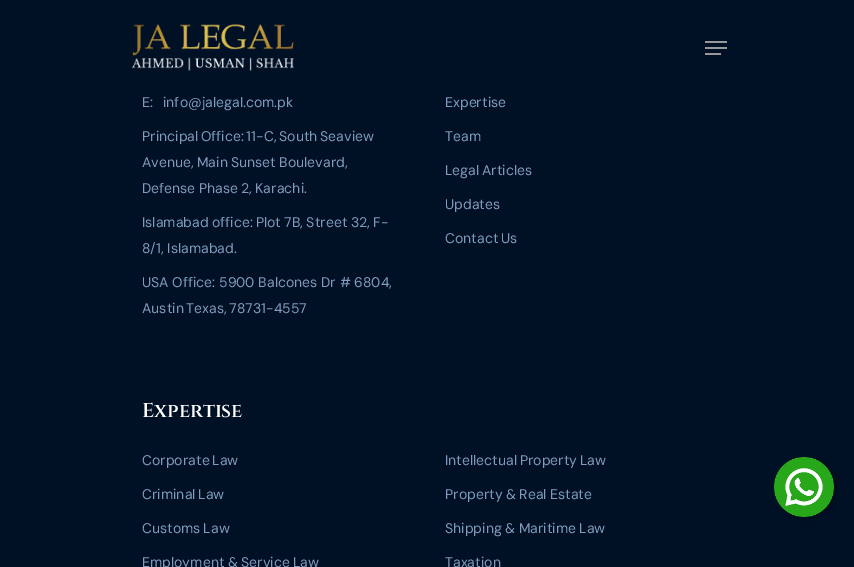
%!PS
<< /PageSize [854 567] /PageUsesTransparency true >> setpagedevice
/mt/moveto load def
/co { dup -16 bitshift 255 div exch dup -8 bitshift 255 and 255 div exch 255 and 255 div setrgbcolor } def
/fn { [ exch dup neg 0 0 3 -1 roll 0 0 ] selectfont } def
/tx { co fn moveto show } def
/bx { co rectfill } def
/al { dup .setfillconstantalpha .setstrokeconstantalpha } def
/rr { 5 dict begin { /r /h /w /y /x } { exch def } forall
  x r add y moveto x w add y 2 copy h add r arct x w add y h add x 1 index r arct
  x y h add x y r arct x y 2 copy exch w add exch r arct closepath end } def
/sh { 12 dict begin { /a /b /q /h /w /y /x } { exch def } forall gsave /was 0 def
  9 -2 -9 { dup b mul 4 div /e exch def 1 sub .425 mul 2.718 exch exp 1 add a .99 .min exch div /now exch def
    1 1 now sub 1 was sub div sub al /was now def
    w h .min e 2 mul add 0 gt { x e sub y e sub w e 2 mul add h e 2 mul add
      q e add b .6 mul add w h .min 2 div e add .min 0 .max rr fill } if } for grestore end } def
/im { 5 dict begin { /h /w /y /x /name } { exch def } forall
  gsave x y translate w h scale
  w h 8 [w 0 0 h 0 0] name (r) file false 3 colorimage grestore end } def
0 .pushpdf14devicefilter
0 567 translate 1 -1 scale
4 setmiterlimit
0 0 854 567 16#001025 bx
(media/1.raw) 131 24 163 47 im
705 41 22 2 16#999999 bx
705 53 16 2 16#999999 bx
705 47 22 2 16#999999 bx
16#000000 co
776 459 60 60 30 3 .3 sh
(media/2.raw) 774 457 60 60 im
(E:) 142 107 /DMSans-Regular 14 16#829BBC tx
(info@jalegal.com.pk) 163 107 /DMSans-Regular 14 16#829BBC tx
142 141 mt -1 0 32 (Principal Office: 11-C, South Seaview) widthshow
142 167 mt -.5 0 32 (Avenue, Main Sunset Boulevard,) widthshow
142 193 mt -.5 0 32 (Defense Phase 2, Karachi.) widthshow
142 227 mt -.5 0 32 (Islamabad office: Plot 7B, Street 32, F-) widthshow
(8/1, Islamabad.) 142 253 /DMSans-Regular 14 16#829BBC tx
(USA Office: 5900 Balcones Dr # 6804,) 142 287 /DMSans-Regular 14 16#829BBC tx
142 313 mt -1 0 32 (Austin Texas, 78731-4557) widthshow
(Expertise) 445 107 /DMSans-Regular 14 16#829BBC tx
(Team) 445 141 /DMSans-Regular 14 16#829BBC tx
445 175 mt -1 0 32 (Legal Articles) widthshow
(Updates) 445 209 /DMSans-Regular 14 16#829BBC tx
445 243 mt -1 0 32 (Contact Us) widthshow
(Expertise) 142 417 /Cinzel-SemiBold 20 16#FFFFFF tx
/DMSans-Regular 14 fn
16#829BBC co
142 465 mt -1 0 32 (Corporate Law) widthshow
142 499 mt -1 0 32 (Criminal Law) widthshow
142 533 mt -1 0 32 (Customs Law) widthshow
142 567 mt -.5 0 32 (Employment & Service Law) widthshow
445 465 mt -1 0 32 (Intellectual Property Law) widthshow
445 499 mt -.5 0 32 (Property & Real Estate) widthshow
445 533 mt -.5 0 32 (Shipping & Maritime Law) widthshow
(Taxation) 445 567 /DMSans-Regular 14 16#829BBC tx
.poppdf14devicefilter showpage
